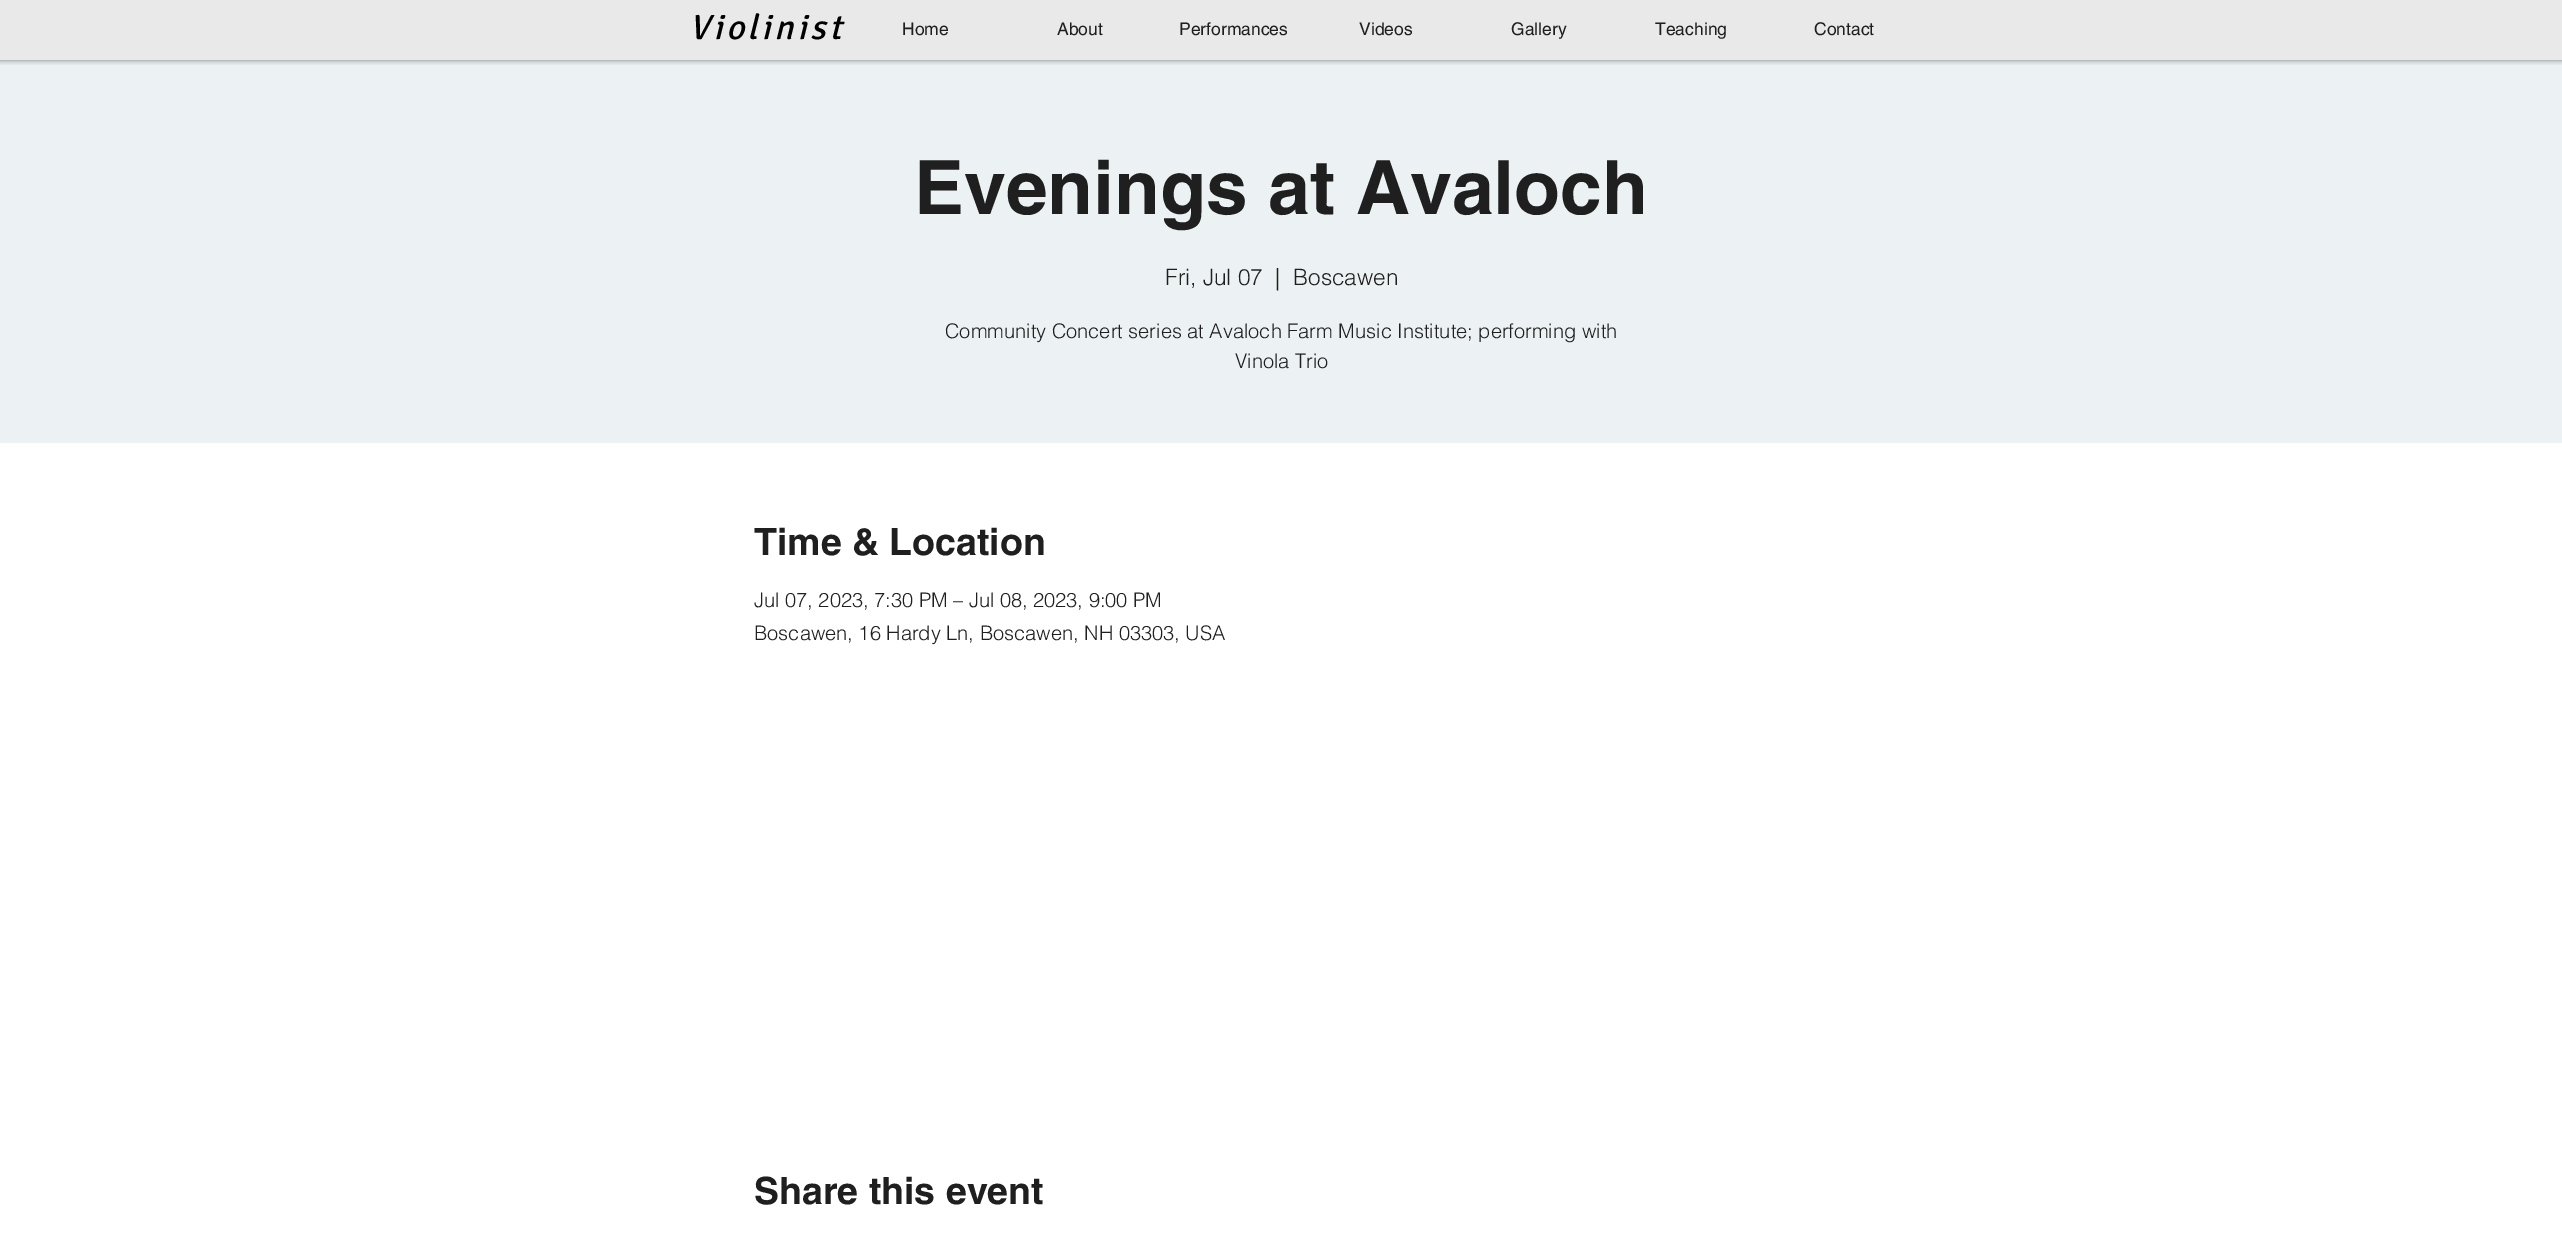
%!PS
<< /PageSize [2562 1247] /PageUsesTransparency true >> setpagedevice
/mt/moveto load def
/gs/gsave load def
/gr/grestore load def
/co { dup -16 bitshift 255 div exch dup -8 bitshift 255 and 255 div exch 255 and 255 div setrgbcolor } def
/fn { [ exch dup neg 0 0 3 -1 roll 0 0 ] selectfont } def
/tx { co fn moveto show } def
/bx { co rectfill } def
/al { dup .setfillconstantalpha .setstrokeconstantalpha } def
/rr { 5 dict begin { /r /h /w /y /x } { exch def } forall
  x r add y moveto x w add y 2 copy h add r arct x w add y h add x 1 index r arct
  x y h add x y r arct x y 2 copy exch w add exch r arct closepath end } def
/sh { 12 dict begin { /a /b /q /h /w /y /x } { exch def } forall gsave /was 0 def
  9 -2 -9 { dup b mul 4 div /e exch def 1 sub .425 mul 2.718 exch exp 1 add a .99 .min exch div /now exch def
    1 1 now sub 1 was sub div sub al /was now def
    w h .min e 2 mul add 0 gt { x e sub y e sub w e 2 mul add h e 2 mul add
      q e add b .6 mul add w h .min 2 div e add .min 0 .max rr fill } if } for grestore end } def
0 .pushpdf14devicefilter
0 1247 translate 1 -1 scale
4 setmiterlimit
0 0 2562 1247 16#E9E9E9 bx
0 60 2562 383 16#ECF2F4 bx
gs
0 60 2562 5 rectclip
16#000000 co
0 -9 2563 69 0 3 .5 sh
gr
0 443 2562 804 16#FFFFFF bx
/Signika-Italic 35 fn
16#000000 co
689 39 mt 3.5 0 (Violinist) ashow
(Home) 902 35 /helvetica-Regular 17.5 16#1F1F1F tx
(About) 1057 35 /helvetica-Regular 17.5 16#1F1F1F tx
(Performances) 1179 35 /helvetica-Regular 17.5 16#1F1F1F tx
(Videos) 1359 35 /helvetica-Regular 17.5 16#1F1F1F tx
(Gallery) 1511 35 /helvetica-Regular 17.5 16#1F1F1F tx
(Teaching) 1655 35 /helvetica-Regular 17.5 16#1F1F1F tx
(Contact) 1814 35 /helvetica-Regular 17.5 16#1F1F1F tx
(Evenings at Avaloch) 914 214 /helvetica-Bold 75 16#1F1F1F tx
(Fri, Jul 07) 1165 285 /helvetica-Light 22.5 16#1F1F1F tx
(|) 1275 285 /helvetica-Light 22.5 16#1F1F1F tx
(Boscawen) 1293 285 /helvetica-Light 22.5 16#1F1F1F tx
(Community Concert series at Avaloch Farm Music Institute; performing with) 945 338 /helvetica-Light 20 16#1F1F1F tx
(Vinola Trio) 1235 368 /helvetica-Light 20 16#1F1F1F tx
(Time & Location) 754 555 /helvetica-Bold 37.5 16#1F1F1F tx
(Jul 07, 2023, 7:30 PM – Jul 08, 2023, 9:00 PM) 754 607 /helvetica-Light 20 16#1F1F1F tx
(Boscawen, 16 Hardy Ln, Boscawen, NH 03303, USA) 754 640 /helvetica-Light 20 16#1F1F1F tx
(Share this event) 754 1204 /helvetica-Bold 37.5 16#1F1F1F tx
.poppdf14devicefilter showpage
